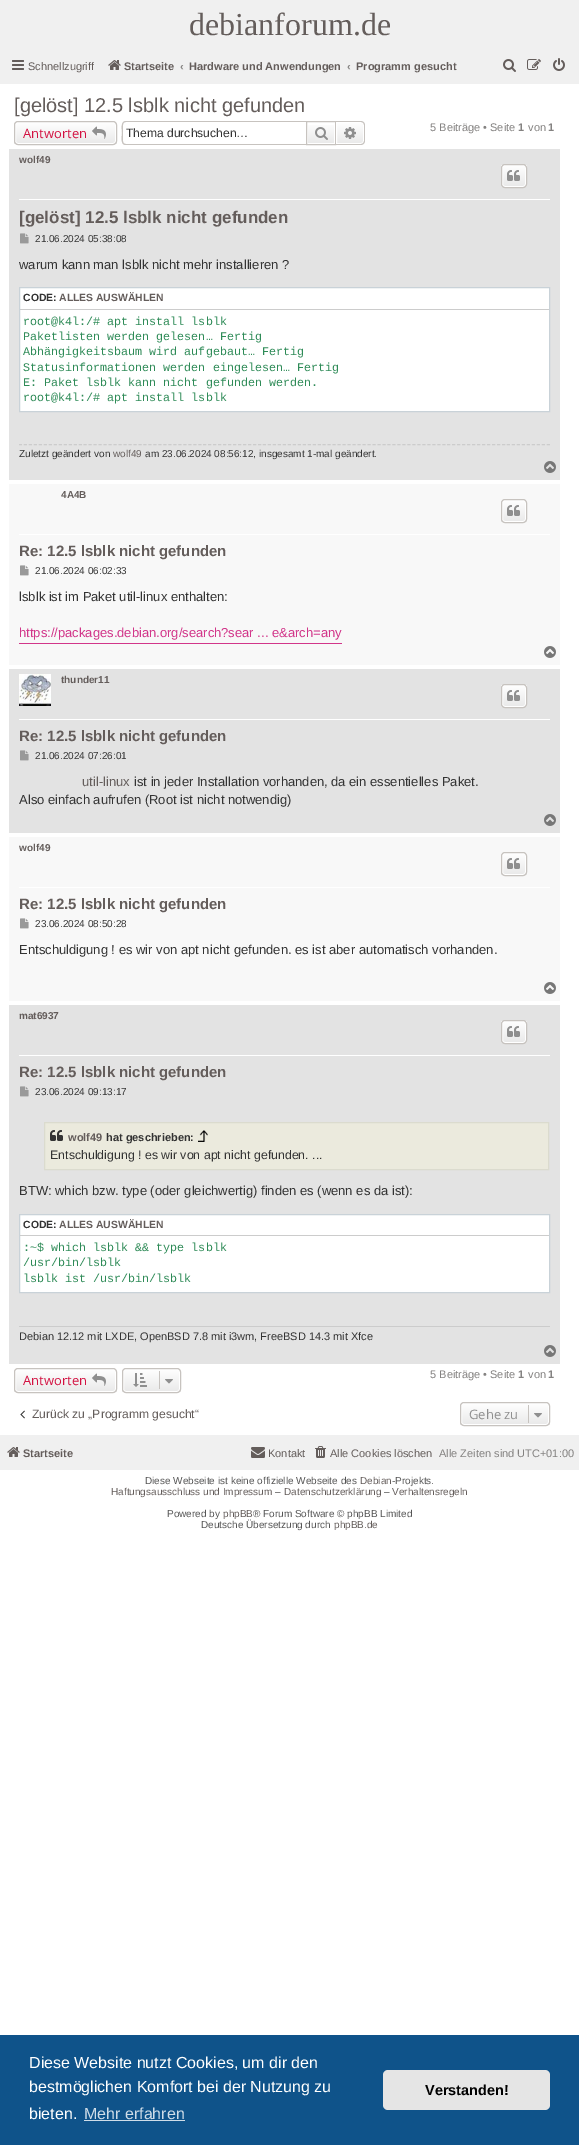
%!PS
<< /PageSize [579 2145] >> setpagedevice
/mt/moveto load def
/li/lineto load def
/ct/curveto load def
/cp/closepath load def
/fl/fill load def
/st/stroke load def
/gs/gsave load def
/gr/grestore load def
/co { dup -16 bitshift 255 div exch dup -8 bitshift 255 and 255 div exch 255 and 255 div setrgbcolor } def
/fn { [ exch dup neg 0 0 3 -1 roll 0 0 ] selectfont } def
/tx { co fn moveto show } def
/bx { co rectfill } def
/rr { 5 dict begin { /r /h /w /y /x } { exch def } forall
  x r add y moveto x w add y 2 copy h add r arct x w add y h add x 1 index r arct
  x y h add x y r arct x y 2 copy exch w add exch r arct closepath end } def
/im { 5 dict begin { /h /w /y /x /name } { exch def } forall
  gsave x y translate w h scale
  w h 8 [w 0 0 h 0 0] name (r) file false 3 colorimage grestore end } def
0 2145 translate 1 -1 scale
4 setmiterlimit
0 0 579 2145 16#FFFFFF bx
0 0 579 84 16#F0F0F0 bx
(media/1.raw) 12 60 12 10 im
(media/2.raw) 108 60 13 10 im
(media/3.raw) 503 59 13 13 im
(media/4.raw) 527 59 14 11 im
(media/5.raw) 553 58 12 13 im
gs
14 121 103 24 4 rr clip newpath
gs 14 122 mt 117 122 li 117 144 li 14 144 li cp clip newpath
<< /ShadingType 2 /ColorSpace /DeviceRGB /Coords [66 122 66 144] /Extend [true true] /Function << /FunctionType 2 /Domain [0 1] /C0 [1 1 1] /C1 [.914 .914 .914] /N 1 >> >> shfill gr
gr
16#FFFFFF co
15.5 122.5 100 21 2.5 rr st
16#C7C3BF co
14.5 121.5 102 23 3.5 rr st
(media/6.raw) 92 126 14 13 im
126 121 mt 306 121 li 306 145 li 125 145 li 120 144 122 136 122 133 ct 122 130 120 121 126 121 ct cp 126 122 mt 306 122 li 306 144 li 126 144 li 124 144 123 143 123 141 ct 123 125 li 123 123 124 122 126 122 ct cp eofill
gs 308 125 mt 334 125 li 334 143 li 308 143 li cp clip newpath
<< /ShadingType 2 /ColorSpace /DeviceRGB /Coords [321 122 321 144] /Extend [true true] /Function << /FunctionType 2 /Domain [0 1] /C0 [1 1 1] /C1 [.914 .914 .914] /N 1 >> >> shfill gr
306.5 121.5 29 23 rectstroke
(media/7.raw) 315 127 13 13 im
gs 336.5 122.5 mt 361 122.5 li 362.5 122.5 363.5 123.5 363.5 125 ct 363.5 141 li 363.5 142.5 362.5 143.5 361 143.5 ct 336.5 143.5 li cp clip newpath
<< /ShadingType 2 /ColorSpace /DeviceRGB /Coords [350 122 350 144] /Extend [true true] /Function << /FunctionType 2 /Domain [0 1] /C0 [1 1 1] /C1 [.914 .914 .914] /N 1 >> >> shfill gr
16#FFFFFF co
336.5 122.5 mt 361 122.5 li 362.5 122.5 363.5 123.5 363.5 125 ct 363.5 141 li 363.5 142.5 362.5 143.5 361 143.5 ct 336.5 143.5 li cp st
16#C7C3BF co
336 121 mt 361 121 li 363 121 365 123 365 125 ct 365 141 li 365 143 363 145 361 145 ct 336 145 li cp 336 122 mt 361 122 li 362.5 122 364 123.5 364 125 ct 364 141 li 364 142.5 362.5 144 361 144 ct 336 144 li cp eofill
(media/8.raw) 344 127 12 12 im
9 149 551 331 16#E3E3E3 bx
19 199 531 1 16#FFFFFF bx
gs
501 164 26 24 4 rr clip newpath
gs 501 165 mt 527 165 li 527 187 li 501 187 li cp clip newpath
<< /ShadingType 2 /ColorSpace /DeviceRGB /Coords [514 165 514 187] /Extend [true true] /Function << /FunctionType 2 /Domain [0 1] /C0 [1 1 1] /C1 [.914 .914 .914] /N 1 >> >> shfill gr
gr
502.5 165.5 23 21 2.5 rr st
16#C7C3BF co
501.5 164.5 25 23 3.5 rr st
(media/9.raw) 507 170 13 11 im
(media/10.raw) 20 233 9 11 im
16#FFFFFF co
19.5 287.5 mt 549.5 287.5 li 549.5 411.5 li 19.5 411.5 li cp gs fl gr
16#C9D2D8 co
st
20 309 529 1 16#CCCCCC bx
[3 1.98] 0 setdash
19 444.5 mt 550 444.5 li st
(media/11.raw) 544 461 12 12 im
9 484 551 181 16#F8F8F8 bx
19 534 531 1 16#FFFFFF bx
gs
501 499 26 24 4 rr clip newpath
gs 501 500 mt 527 500 li 527 522 li 501 522 li cp clip newpath
<< /ShadingType 2 /ColorSpace /DeviceRGB /Coords [514 500 514 522] /Extend [true true] /Function << /FunctionType 2 /Domain [0 1] /C0 [1 1 1] /C1 [.914 .914 .914] /N 1 >> >> shfill gr
gr
[] 0 setdash
502.5 500.5 23 21 2.5 rr st
16#C7C3BF co
501.5 499.5 25 23 3.5 rr st
(media/9.raw) 507 505 13 11 im
(media/12.raw) 20 565 9 11 im
19 643 323 1 16#D2368A bx
(media/13.raw) 544 646 12 12 im
9 669 551 164 16#E3E3E3 bx
19 719 531 1 16#FFFFFF bx
(media/14.raw) 19 674 32 32 im
gs
501 684 26 24 4 rr clip newpath
gs 501 685 mt 527 685 li 527 707 li 501 707 li cp clip newpath
<< /ShadingType 2 /ColorSpace /DeviceRGB /Coords [514 685 514 707] /Extend [true true] /Function << /FunctionType 2 /Domain [0 1] /C0 [1 1 1] /C1 [.914 .914 .914] /N 1 >> >> shfill gr
gr
502.5 685.5 23 21 2.5 rr st
16#C7C3BF co
501.5 684.5 25 23 3.5 rr st
(media/9.raw) 507 690 13 11 im
(media/10.raw) 20 750 9 11 im
(media/11.raw) 544 814 12 12 im
9 837 551 164 16#F8F8F8 bx
19 887 531 1 16#FFFFFF bx
gs
501 852 26 24 4 rr clip newpath
gs 501 853 mt 527 853 li 527 875 li 501 875 li cp clip newpath
<< /ShadingType 2 /ColorSpace /DeviceRGB /Coords [514 853 514 875] /Extend [true true] /Function << /FunctionType 2 /Domain [0 1] /C0 [1 1 1] /C1 [.914 .914 .914] /N 1 >> >> shfill gr
gr
502.5 853.5 23 21 2.5 rr st
16#C7C3BF co
501.5 852.5 25 23 3.5 rr st
(media/9.raw) 507 858 13 11 im
(media/12.raw) 20 918 9 11 im
(media/13.raw) 544 982 12 12 im
9 1005 551 359 16#E3E3E3 bx
19 1055 531 1 16#FFFFFF bx
gs
501 1020 26 24 4 rr clip newpath
gs 501 1021 mt 527 1021 li 527 1043 li 501 1043 li cp clip newpath
<< /ShadingType 2 /ColorSpace /DeviceRGB /Coords [514 1021 514 1043] /Extend [true true] /Function << /FunctionType 2 /Domain [0 1] /C0 [1 1 1] /C1 [.914 .914 .914] /N 1 >> >> shfill gr
gr
502.5 1021.5 23 21 2.5 rr st
16#C7C3BF co
501.5 1020.5 25 23 3.5 rr st
(media/9.raw) 507 1026 13 11 im
(media/10.raw) 20 1086 9 11 im
16#EBEADD co
44.5 1122.5 mt 548.5 1122.5 li 548.5 1169.5 li 44.5 1169.5 li cp gs fl gr
16#DBDBCE co
st
(media/15.raw) 50 1130 13 11 im
(media/16.raw) 198 1130 10 12 im
16#FFFFFF co
19.5 1214.5 mt 549.5 1214.5 li 549.5 1292.5 li 19.5 1292.5 li cp gs fl gr
16#C9D2D8 co
st
20 1235 529 1 16#CCCCCC bx
19 1326 531 1 16#CCCCCC bx
(media/11.raw) 544 1345 12 12 im
gs
14 1368 103 25 4 rr clip newpath
gs 14 1369 mt 117 1369 li 117 1392 li 14 1392 li cp clip newpath
<< /ShadingType 2 /ColorSpace /DeviceRGB /Coords [66 1369 66 1392] /Extend [true true] /Function << /FunctionType 2 /Domain [0 1] /C0 [1 1 1] /C1 [.914 .914 .914] /N 1 >> >> shfill gr
gr
16#FFFFFF co
15.5 1369.5 100 22 2.5 rr st
16#C7C3BF co
14.5 1368.5 102 24 3.5 rr st
(media/6.raw) 92 1373 14 13 im
gs
122 1368 59 25 4 rr clip newpath
gs 122 1369 mt 181 1369 li 181 1392 li 122 1392 li cp clip newpath
<< /ShadingType 2 /ColorSpace /DeviceRGB /Coords [152 1369 152 1392] /Extend [true true] /Function << /FunctionType 2 /Domain [0 1] /C0 [1 1 1] /C1 [.914 .914 .914] /N 1 >> >> shfill gr
gr
16#FFFFFF co
123.5 1369.5 56 22 2.5 rr st
16#C7C3BF co
122.5 1368.5 58 24 3.5 rr st
(media/17.raw) 133 1373 14 14 im
159 1371 1 18 16#C7C3BF bx
(media/18.raw) 165 1379 8 5 im
(media/19.raw) 20 1410 5 9 im
gs
460 1402 90 24 4 rr clip newpath
gs 460 1403 mt 550 1403 li 550 1425 li 460 1425 li cp clip newpath
<< /ShadingType 2 /ColorSpace /DeviceRGB /Coords [505 1403 505 1425] /Extend [true true] /Function << /FunctionType 2 /Domain [0 1] /C0 [1 1 1] /C1 [.914 .914 .914] /N 1 >> >> shfill gr
gr
16#FFFFFF co
461.5 1403.5 87 21 2.5 rr st
16#C7C3BF co
460.5 1402.5 89 23 3.5 rr st
528 1405 1 18 16#C7C3BF bx
(media/18.raw) 534 1413 8 5 im
0 1435 579 35 16#F0F0F0 bx
(media/2.raw) 7 1447 13 10 im
(media/20.raw) 251 1447 14 11 im
(media/21.raw) 315 1446 11 12 im
0 2035 579 110 16#0F538A bx
84 2120 101 1 16#CFDDE8 bx
16#E5E5E5 co
383 2070 167 40 5 rr fl
(debianforum.de) 189 35 /LiberationSerif-Regular 32 16#645D5B tx
(Schnellzugriff) 28 70 /LiberationSans-Regular 11 16#645D5B tx
(Startseite) 124 70 /LiberationSans-Bold 11 16#645D5B tx
(‹) 180 70 /LiberationSans-Bold 11 16#848281 tx
(Hardware und Anwendungen) 189 70 /LiberationSans-Bold 11 16#645D5B tx
(‹) 347 70 /LiberationSans-Bold 11 16#848281 tx
(Programm gesucht) 356 70 /LiberationSans-Bold 11 16#645D5B tx
([gelöst] 12.5 lsblk nicht gefunden) 14 112 /LiberationSans-Regular 20 16#645D5B tx
(Antworten) 23 138 /OpenSans-Regular 13 16#D31141 tx
(Thema durchsuchen…) 126 137 /LiberationSans-Regular 12.1 16#333333 tx
(5 Beiträge • Seite) 430 131 /LiberationSans-Regular 11 16#848281 tx
(1) 518 131 /LiberationSans-Bold 11 16#848281 tx
(von) 528 131 /LiberationSans-Regular 11 16#848281 tx
(1) 548 131 /LiberationSans-Bold 11 16#848281 tx
(wolf49) 19 163 /LiberationSans-Bold 10 16#645D5B tx
([gelöst] 12.5 lsblk nicht gefunden) 19 223 /LiberationSans-Bold 17 16#645D5B tx
(21.06.2024 05:38:08) 35 242 /LiberationSans-Regular 10 16#333333 tx
(warum kann man lsblk nicht mehr installieren ?) 19 269 /LiberationSans-Regular 13 16#333333 tx
(CODE:) 23 301 /LiberationSans-Bold 10.4 16#333333 tx
(ALLES AUSWÄHLEN) 59 301 /LiberationSans-Bold 10.4 16#645D5B tx
(root@k4l:/# apt install lsblk) 23 325 /LiberationMono-Regular 11.7 16#2E8B57 tx
(Paketlisten werden gelesen… Fertig) 23 340 /LiberationMono-Regular 11.7 16#2E8B57 tx
(Abhängigkeitsbaum wird aufgebaut… Fertig) 23 355 /LiberationMono-Regular 11.7 16#2E8B57 tx
(Statusinformationen werden eingelesen… Fertig) 23 371 /LiberationMono-Regular 11.7 16#2E8B57 tx
(E: Paket lsblk kann nicht gefunden werden.) 23 386 /LiberationMono-Regular 11.7 16#2E8B57 tx
(root@k4l:/# apt install lsblk) 23 401 /LiberationMono-Regular 11.7 16#2E8B57 tx
(Zuletzt geändert von) 19 457 /LiberationSans-Regular 10 16#333333 tx
(wolf49) 113 457 /LiberationSans-Regular 10 16#645D5B tx
(am 23.06.2024 08:56:12, insgesamt 1-mal geändert.) 145 457 /LiberationSans-Regular 10 16#333333 tx
(4A4B) 61 498 /LiberationSans-Bold 10 16#645D5B tx
(Re: 12.5 lsblk nicht gefunden) 19 556 /LiberationSans-Bold 15 16#645D5B tx
(21.06.2024 06:02:33) 35 574 /LiberationSans-Regular 10 16#333333 tx
(lsblk ist im Paket util-linux enthalten:) 19 601 /LiberationSans-Regular 13 16#333333 tx
(https://packages.debian.org/search?sear ... e&arch=any) 19 637 /LiberationSans-Regular 13 16#D2368A tx
(thunder11) 61 683 /LiberationSans-Bold 10 16#645D5B tx
(Re: 12.5 lsblk nicht gefunden) 19 741 /LiberationSans-Bold 15 16#645D5B tx
(21.06.2024 07:26:01) 35 759 /LiberationSans-Regular 10 16#333333 tx
(util-linux) 82 786 /LiberationSans-Regular 13 16#645D5B tx
(ist in jeder Installation vorhanden, da ein essentielles Paket.) 134 786 /LiberationSans-Regular 13 16#333333 tx
(Also einfach aufrufen \(Root ist nicht notwendig\)) 19 804 /LiberationSans-Regular 13 16#333333 tx
(wolf49) 19 851 /LiberationSans-Bold 10 16#645D5B tx
(Re: 12.5 lsblk nicht gefunden) 19 909 /LiberationSans-Bold 15 16#645D5B tx
(23.06.2024 08:50:28) 35 927 /LiberationSans-Regular 10 16#333333 tx
(Entschuldigung ! es wir von apt nicht gefunden. es ist aber automatisch vorhanden.) 19 954 /LiberationSans-Regular 13 16#333333 tx
(mat6937) 19 1019 /LiberationSans-Bold 10 16#645D5B tx
(Re: 12.5 lsblk nicht gefunden) 19 1077 /LiberationSans-Bold 15 16#645D5B tx
(23.06.2024 09:13:17) 35 1095 /LiberationSans-Regular 10 16#333333 tx
(wolf49) 68 1141 /LiberationSans-Bold 11 16#645D5B tx
(hat geschrieben:) 106 1141 /LiberationSans-Bold 11 16#333333 tx
(Entschuldigung ! es wir von apt nicht gefunden. ...) 50 1159 /LiberationSans-Regular 12.35 16#333333 tx
(BTW: which bzw. type \(oder gleichwertig\) finden es \(wenn es da ist\):) 19 1195 /LiberationSans-Regular 13 16#333333 tx
(CODE:) 23 1228 /LiberationSans-Bold 10.4 16#333333 tx
(ALLES AUSWÄHLEN) 59 1228 /LiberationSans-Bold 10.4 16#645D5B tx
(:~$ which lsblk && type lsblk) 23 1251 /LiberationMono-Regular 11.7 16#2E8B57 tx
(/usr/bin/lsblk) 23 1266 /LiberationMono-Regular 11.7 16#2E8B57 tx
(lsblk ist /usr/bin/lsblk) 23 1282 /LiberationMono-Regular 11.7 16#2E8B57 tx
(Debian 12.12 mit LXDE, OpenBSD 7.8 mit i3wm, FreeBSD 14.3 mit Xfce) 19 1340 /LiberationSans-Regular 11 16#333333 tx
(Antworten) 23 1385 /OpenSans-Regular 13 16#D31141 tx
(5 Beiträge • Seite) 430 1378 /LiberationSans-Regular 11 16#848281 tx
(1) 518 1378 /LiberationSans-Bold 11 16#848281 tx
(von) 528 1378 /LiberationSans-Regular 11 16#848281 tx
(1) 548 1378 /LiberationSans-Bold 11 16#848281 tx
(Zurück zu „Programm gesucht“) 32 1418 /LiberationSans-Regular 12.1 16#645D5B tx
(Gehe zu) 469 1419 /OpenSans-Regular 13 16#8F8F8F tx
(Startseite) 23 1457 /LiberationSans-Bold 11 16#645D5B tx
(Kontakt) 268 1457 /LiberationSans-Regular 11 16#645D5B tx
(Alle Cookies löschen) 330 1457 /LiberationSans-Regular 11 16#645D5B tx
(Alle Zeiten sind UTC+01:00) 439 1457 /LiberationSans-Regular 11 16#848281 tx
(Diese Webseite ist keine offizielle Webseite des) 145 1484 /LiberationSans-Regular 10 16#555555 tx
(Debian) 360 1484 /LiberationSans-Regular 10 16#645D5B tx
(-Projekts.) 392 1484 /LiberationSans-Regular 10 16#555555 tx
(Haftungsausschluss und Impressum) 111 1495 /LiberationSans-Regular 10 16#645D5B tx
(–) 275 1495 /LiberationSans-Regular 10 16#555555 tx
(Datenschutzerklärung) 284 1495 /LiberationSans-Regular 10 16#645D5B tx
(–) 384 1495 /LiberationSans-Regular 10 16#555555 tx
(Verhaltensregeln) 392 1495 /LiberationSans-Regular 10 16#645D5B tx
(Powered by) 167 1517 /LiberationSans-Regular 10 16#555555 tx
(phpBB) 223 1517 /LiberationSans-Regular 10 16#645D5B tx
(® Forum Software © phpBB Limited) 253 1517 /LiberationSans-Regular 10 16#555555 tx
(Deutsche Übersetzung durch) 201 1528 /LiberationSans-Regular 10 16#555555 tx
(phpBB.de) 334 1528 /LiberationSans-Regular 10 16#645D5B tx
(Diese Website nutzt Cookies, um dir den) 29 2068 /LiberationSans-Regular 16 16#FFFFFF tx
(bestmöglichen Komfort bei der Nutzung zu) 29 2092 /LiberationSans-Regular 16 16#FFFFFF tx
(bieten.) 29 2119 /LiberationSans-Regular 16 16#FFFFFF tx
(Mehr erfahren) 84 2119 /LiberationSans-Regular 16 16#CFDDE8 tx
(Verstanden!) 425 2095 /LiberationSans-Bold 14.5 16#000000 tx
showpage
